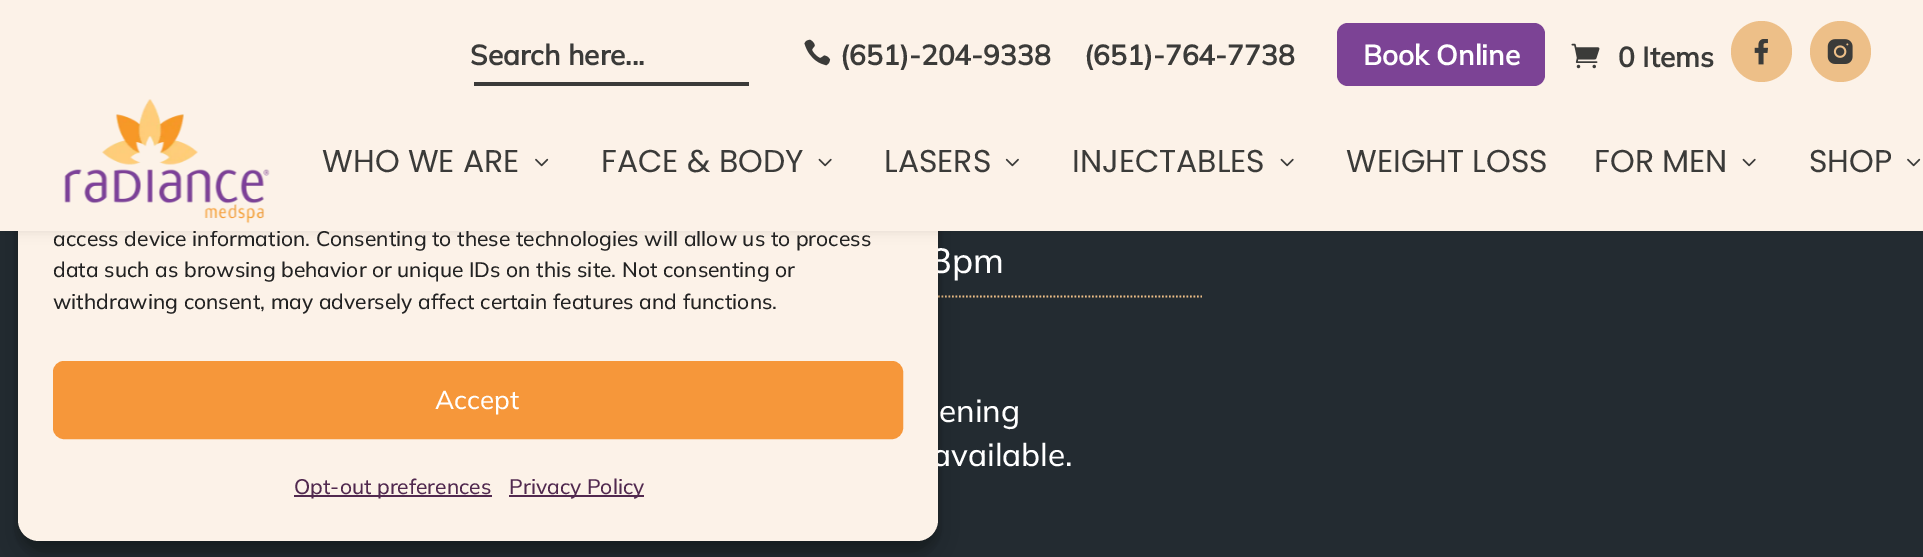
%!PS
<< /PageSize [1923 557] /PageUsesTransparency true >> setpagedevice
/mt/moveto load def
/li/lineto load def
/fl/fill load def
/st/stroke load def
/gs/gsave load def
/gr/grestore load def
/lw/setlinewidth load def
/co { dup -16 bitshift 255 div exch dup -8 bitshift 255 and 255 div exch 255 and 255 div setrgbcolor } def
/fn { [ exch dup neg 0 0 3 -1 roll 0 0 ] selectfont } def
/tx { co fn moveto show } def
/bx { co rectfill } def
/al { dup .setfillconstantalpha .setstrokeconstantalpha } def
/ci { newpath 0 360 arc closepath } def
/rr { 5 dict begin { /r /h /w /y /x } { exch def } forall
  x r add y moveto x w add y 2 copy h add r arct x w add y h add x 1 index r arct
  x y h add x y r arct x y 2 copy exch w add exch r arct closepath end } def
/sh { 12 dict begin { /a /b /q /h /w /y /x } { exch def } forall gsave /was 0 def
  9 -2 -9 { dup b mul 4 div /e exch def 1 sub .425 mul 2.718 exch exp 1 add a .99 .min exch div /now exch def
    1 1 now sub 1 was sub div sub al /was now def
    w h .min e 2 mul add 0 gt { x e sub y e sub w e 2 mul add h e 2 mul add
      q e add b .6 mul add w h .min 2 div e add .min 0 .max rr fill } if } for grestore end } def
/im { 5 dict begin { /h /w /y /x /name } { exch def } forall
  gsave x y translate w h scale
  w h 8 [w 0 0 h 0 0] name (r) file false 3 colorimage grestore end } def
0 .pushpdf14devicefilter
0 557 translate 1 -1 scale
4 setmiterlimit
0 0 1923 557 16#232B31 bx
16#EDBF88 co
1.8 lw
[1.75 1.75] 0 setdash
721 296.5 mt 1202 296.5 li st
16#000000 co
18 88 920 463 21 5 .23 sh
18 95 920 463 21 17.5 .19 sh
(3pm) 931 273 /Mulish-ExtraLight 35 16#FFFFFF tx
(ening) 939 422 /Mulish-ExtraLight 31.5 16#FFFFFF tx
(available.) 932 466 /Mulish-ExtraLight 31.5 16#FFFFFF tx
16#FCF2E8 co
18 77 920 464 21 rr fl
16#000000 co
0 91 1923 140 0 6 .1 sh
(access device information. Consenting to these technologies will allow us to process) 53 246 /Mulish-ExtraLight 21 16#222222 tx
0 0 1923 231 16#FCF2E8 bx
16#EDBF88 co
1840.5 51.5 30.5 ci fl
(media/4.raw) 1827 39 26 25 im
1761.5 51.5 30.5 ci fl
(media/3.raw) 1754 39 14 26 im
(media/2.raw) 1571 43 29 26 im
16#7C4395 co
1337 23 208 63 11 rr fl
(Book Online) 1363 65 /Mulish-Bold 28 16#FFFFFF tx
(\(651\)-764-7738) 1084 65 /Mulish-Bold 28 16#3B3B39 tx
(\(651\)-204-9338) 840 65 /Mulish-Bold 28 16#3B3B39 tx
(media/1.raw) 804 39 27 27 im
(Search here...) 470 65 /Mulish-Bold 28 16#3B3B39 tx
474 82 275 4 16#3B3B39 bx
(0 Items) 1618 67 /Mulish-Bold 28 16#3B3B39 tx
(media/6.raw) 1907 158 14 9 im
(SHOP) 1809 172 /Poppins-Regular 31.5 16#3B3B39 tx
(media/7.raw) 1742 158 14 9 im
(FOR MEN) 1594 172 /Poppins-Regular 31.5 16#3B3B39 tx
(WEIGHT LOSS) 1346 172 /Poppins-Regular 31.5 16#3B3B39 tx
(media/7.raw) 1280 158 14 9 im
(INJECTABLES) 1072 172 /Poppins-Regular 31.5 16#3B3B39 tx
(media/8.raw) 1005 158 14 9 im
(LASERS) 884 172 /Poppins-Regular 31.5 16#3B3B39 tx
(media/7.raw) 818 158 14 9 im
(FACE & BODY) 601 172 /Poppins-Regular 31.5 16#3B3B39 tx
(media/6.raw) 535 158 14 9 im
(WHO WE ARE) 322 172 /Poppins-Regular 31.5 16#3B3B39 tx
(media/5.raw) 64 99 206 125 im
(data such as browsing behavior or unique IDs on this site. Not consenting or) 53 277 /Mulish-ExtraLight 21 16#222222 tx
(withdrawing consent, may adversely affect certain features and functions.) 53 309 /Mulish-ExtraLight 21 16#222222 tx
16#F6973A co
54 362 848 76 10 rr gs fl gr
2 lw
[] 0 setdash
st
(Accept) 435 409 /Mulish-ExtraLight 26 16#FFFFFF tx
294 495 198 2 16#51294F bx
(Opt-out preferences) 294 494 /Mulish-ExtraLight 21 16#51294F tx
509 495 135 2 16#51294F bx
(Privacy Policy) 509 494 /Mulish-ExtraLight 21 16#51294F tx
.poppdf14devicefilter showpage
